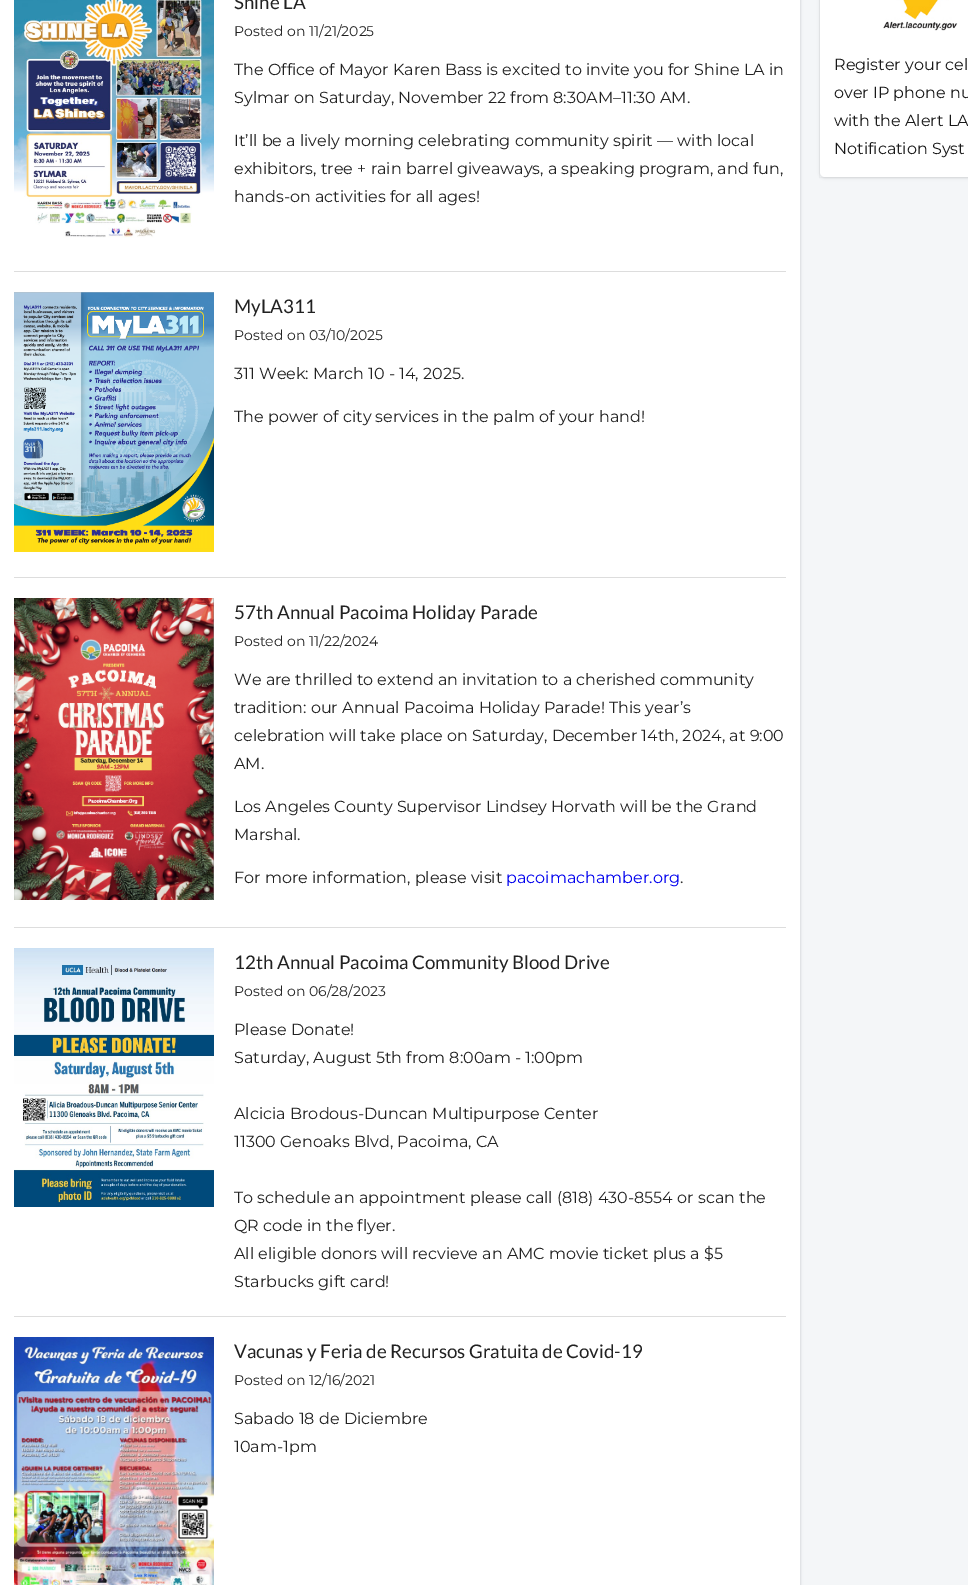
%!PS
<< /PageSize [968 1585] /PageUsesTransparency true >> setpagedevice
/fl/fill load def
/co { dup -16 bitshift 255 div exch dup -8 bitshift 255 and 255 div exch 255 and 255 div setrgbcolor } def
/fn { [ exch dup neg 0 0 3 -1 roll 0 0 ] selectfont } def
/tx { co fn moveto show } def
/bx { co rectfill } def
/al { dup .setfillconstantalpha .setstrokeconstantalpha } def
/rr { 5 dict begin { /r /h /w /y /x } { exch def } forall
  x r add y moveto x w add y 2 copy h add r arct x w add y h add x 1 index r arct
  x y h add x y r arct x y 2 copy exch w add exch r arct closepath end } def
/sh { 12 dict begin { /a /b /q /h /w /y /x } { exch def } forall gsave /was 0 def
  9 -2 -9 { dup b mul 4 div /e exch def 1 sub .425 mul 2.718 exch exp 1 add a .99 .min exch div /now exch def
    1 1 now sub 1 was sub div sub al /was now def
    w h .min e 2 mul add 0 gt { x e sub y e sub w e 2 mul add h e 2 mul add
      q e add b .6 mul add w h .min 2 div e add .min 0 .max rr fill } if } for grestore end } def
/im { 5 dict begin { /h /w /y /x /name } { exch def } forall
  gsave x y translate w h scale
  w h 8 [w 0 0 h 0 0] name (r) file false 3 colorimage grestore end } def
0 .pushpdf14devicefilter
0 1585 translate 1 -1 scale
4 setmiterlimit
0 0 968 1585 16#F4F6F8 bx
16#3F3F44 co
0 -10 800 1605 5 1.5 .15 sh
16#E1E3E6 co
-.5 -.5 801 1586 rectstroke
0 0 800 1585 16#FFFFFF bx
(media/1.raw) 14 0 200 238 im
14 271 772 1 16#DDDDDD bx
(media/2.raw) 14 292 200 260 im
14 577 772 1 16#DDDDDD bx
(media/3.raw) 14 598 200 302 im
14 927 772 1 16#DDDDDD bx
(media/4.raw) 14 948 200 259 im
14 1316 772 1 16#DDDDDD bx
(media/5.raw) 14 1337 200 248 im
16#3F3F44 co
820 -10 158 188 5 1.5 .15 sh
0.05 al
819.5 -.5 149 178 rectstroke
1 al
16#FFFFFF co
820 -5 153 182 5 rr fl
(media/6.raw) 883 0 75 31 im
(Shine LA) 234 9 /Lato-Regular 18.75 16#212121 tx
(Posted on 11/21/2025) 234 36 /Montserrat-Regular 14 16#212121 tx
(The Office of Mayor Karen Bass is excited to invite you for Shine LA in) 234 75 /Montserrat-Regular 16 16#212121 tx
(Sylmar on Saturday, November 22 from 8:30AM–11:30 AM.) 234 103 /Montserrat-Regular 16 16#212121 tx
(It’ll be a lively morning celebrating community spirit — with local) 234 146 /Montserrat-Regular 16 16#212121 tx
(exhibitors, tree + rain barrel giveaways, a speaking program, and fun,) 234 174 /Montserrat-Regular 16 16#212121 tx
(hands-on activities for all ages!) 234 202 /Montserrat-Regular 16 16#212121 tx
(MyLA311) 234 313 /Lato-Regular 18.75 16#212121 tx
(Posted on 03/10/2025) 234 340 /Montserrat-Regular 14 16#212121 tx
(311 Week: March 10 - 14, 2025.) 234 379 /Montserrat-Regular 16 16#212121 tx
(The power of city services in the palm of your hand!) 234 422 /Montserrat-Regular 16 16#212121 tx
(57th Annual Pacoima Holiday Parade) 234 619 /Lato-Regular 18.75 16#212121 tx
(Posted on 11/22/2024) 234 646 /Montserrat-Regular 14 16#212121 tx
(We are thrilled to extend an invitation to a cherished community) 234 685 /Montserrat-Regular 16 16#212121 tx
(tradition: our Annual Pacoima Holiday Parade! This year’s) 234 713 /Montserrat-Regular 16 16#212121 tx
(celebration will take place on Saturday, December 14th, 2024, at 9:00) 234 741 /Montserrat-Regular 16 16#212121 tx
(AM.) 234 769 /Montserrat-Regular 16 16#212121 tx
(Los Angeles County Supervisor Lindsey Horvath will be the Grand) 234 812 /Montserrat-Regular 16 16#212121 tx
(Marshal.) 234 840 /Montserrat-Regular 16 16#212121 tx
(For more information, please visit) 234 883 /Montserrat-Regular 16 16#212121 tx
(pacoimachamber.org) 506 883 /Montserrat-Regular 16 16#0000EE tx
(.) 680 883 /Montserrat-Regular 16 16#212121 tx
(12th Annual Pacoima Community Blood Drive) 234 969 /Lato-Regular 18.75 16#212121 tx
(Posted on 06/28/2023) 234 996 /Montserrat-Regular 14 16#212121 tx
(Please Donate!) 234 1035 /Montserrat-Regular 16 16#212121 tx
(Saturday, August 5th from 8:00am - 1:00pm) 234 1063 /Montserrat-Regular 16 16#212121 tx
(Alcicia Brodous-Duncan Multipurpose Center) 234 1119 /Montserrat-Regular 16 16#212121 tx
(11300 Genoaks Blvd, Pacoima, CA) 234 1147 /Montserrat-Regular 16 16#212121 tx
(To schedule an appointment please call \(818\) 430-8554 or scan the) 234 1203 /Montserrat-Regular 16 16#212121 tx
(QR code in the flyer.) 234 1231 /Montserrat-Regular 16 16#212121 tx
(All eligible donors will recvieve an AMC movie ticket plus a $5) 234 1259 /Montserrat-Regular 16 16#212121 tx
(Starbucks gift card!) 234 1287 /Montserrat-Regular 16 16#212121 tx
(Vacunas y Feria de Recursos Gratuita de Covid-19) 234 1358 /Lato-Regular 18.75 16#212121 tx
(Posted on 12/16/2021) 234 1385 /Montserrat-Regular 14 16#212121 tx
(Sabado 18 de Diciembre) 234 1424 /Montserrat-Regular 16 16#212121 tx
(10am-1pm) 234 1452 /Montserrat-Regular 16 16#212121 tx
(Register your cel) 834 70 /Montserrat-Regular 16 16#181818 tx
(over IP phone nu) 834 98 /Montserrat-Regular 16 16#181818 tx
(with the Alert LA) 834 126 /Montserrat-Regular 16 16#181818 tx
(Notification Syst) 834 154 /Montserrat-Regular 16 16#181818 tx
.poppdf14devicefilter showpage
